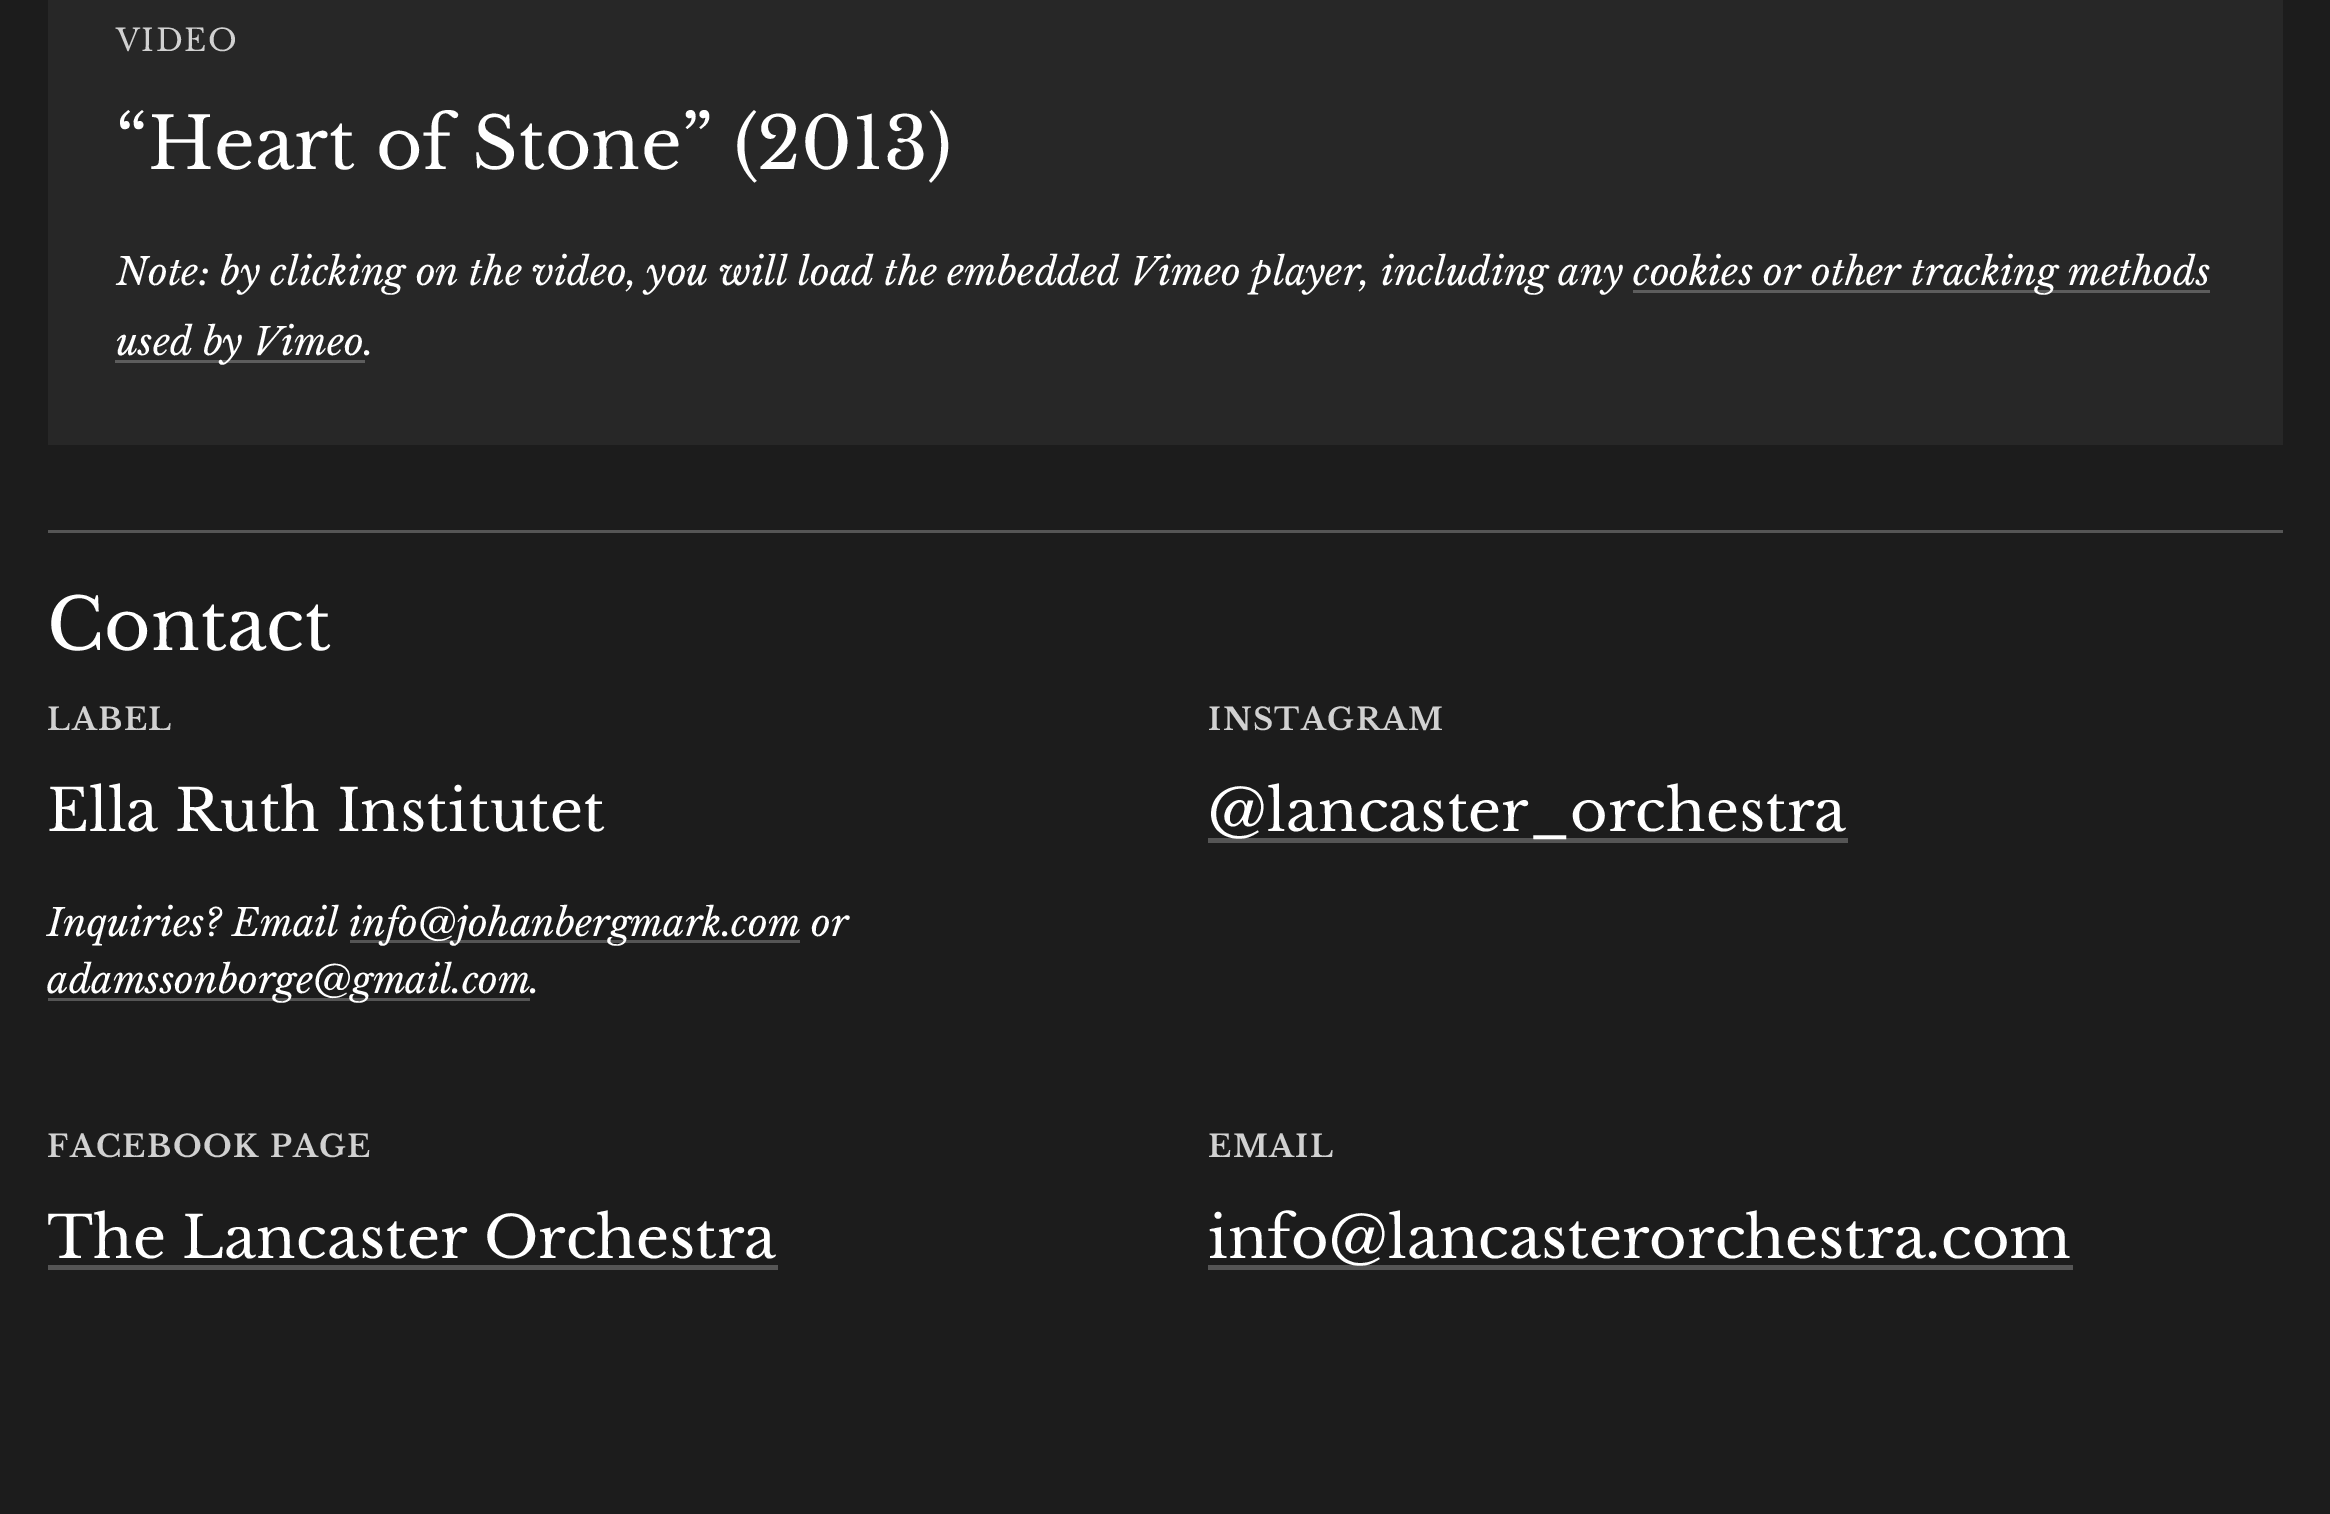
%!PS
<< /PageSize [2330 1514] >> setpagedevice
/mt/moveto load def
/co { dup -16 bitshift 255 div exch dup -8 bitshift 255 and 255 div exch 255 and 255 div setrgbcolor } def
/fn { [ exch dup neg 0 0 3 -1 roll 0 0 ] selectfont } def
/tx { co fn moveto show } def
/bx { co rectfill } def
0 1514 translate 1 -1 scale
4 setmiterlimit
0 0 2330 1514 16#1C1C1C bx
48 0 2235 445 16#272727 bx
1633 290 577 3 16#5D5D5D bx
115 360 250 3 16#5D5D5D bx
48 530 2235 3 16#555555 bx
350 940 450 3 16#555555 bx
48 998 482 3 16#555555 bx
1208 838 640 5 16#555555 bx
48 1265 730 5 16#555555 bx
1208 1265 865 5 16#555555 bx
/LibreBaskerville-Regular 30.5 fn
16#D1D1D1 co
116 51 mt 1.5 0 (VIDEO) ashow
(“Heart of Stone” \(2013\)) 116 169 /LibreBaskerville-Regular 71.25 16#FFFFFF tx
(Note: by clicking on the video, you will load the embedded Vimeo player, including any) 116 285 /LibreBaskerville-Italic 37.75 16#FFFFFF tx
(cookies or other tracking methods) 1633 285 /LibreBaskerville-Italic 37.75 16#FFFFFF tx
(used by Vimeo.) 116 355 /LibreBaskerville-Italic 37.75 16#FFFFFF tx
(Contact) 47 650 /LibreBaskerville-Regular 71.25 16#FFFFFF tx
/LibreBaskerville-Bold 30.5 fn
16#D1D1D1 co
47 730 mt 1.5 0 (LABEL) ashow
(Ella Ruth Institutet) 47 831 /LibreBaskerville-Regular 57.6 16#FFFFFF tx
(Inquiries? Email) 47 936 /LibreBaskerville-Italic 37.75 16#FFFFFF tx
(info@johanbergmark.com) 349 936 /LibreBaskerville-Italic 37.75 16#FFFFFF tx
(or) 811 936 /LibreBaskerville-Italic 37.75 16#FFFFFF tx
(adamssonborge@gmail.com) 47 993 /LibreBaskerville-Italic 37.75 16#FFFFFF tx
(.) 530 993 /LibreBaskerville-Italic 37.75 16#FFFFFF tx
/LibreBaskerville-Bold 30.5 fn
16#D1D1D1 co
1208 730 mt 1.5 0 (INSTAGRAM) ashow
(@lancaster_orchestra) 1208 831 /LibreBaskerville-Regular 57.6 16#FFFFFF tx
/LibreBaskerville-Bold 30.5 fn
16#D1D1D1 co
47 1157 mt 1.5 0 (FACEBOOK PAGE) ashow
(The Lancaster Orchestra) 47 1258 /LibreBaskerville-Regular 57.6 16#FFFFFF tx
/LibreBaskerville-Bold 30.5 fn
16#D1D1D1 co
1208 1157 mt 1.5 0 (EMAIL) ashow
(info@lancasterorchestra.com) 1208 1258 /LibreBaskerville-Regular 57.6 16#FFFFFF tx
showpage
